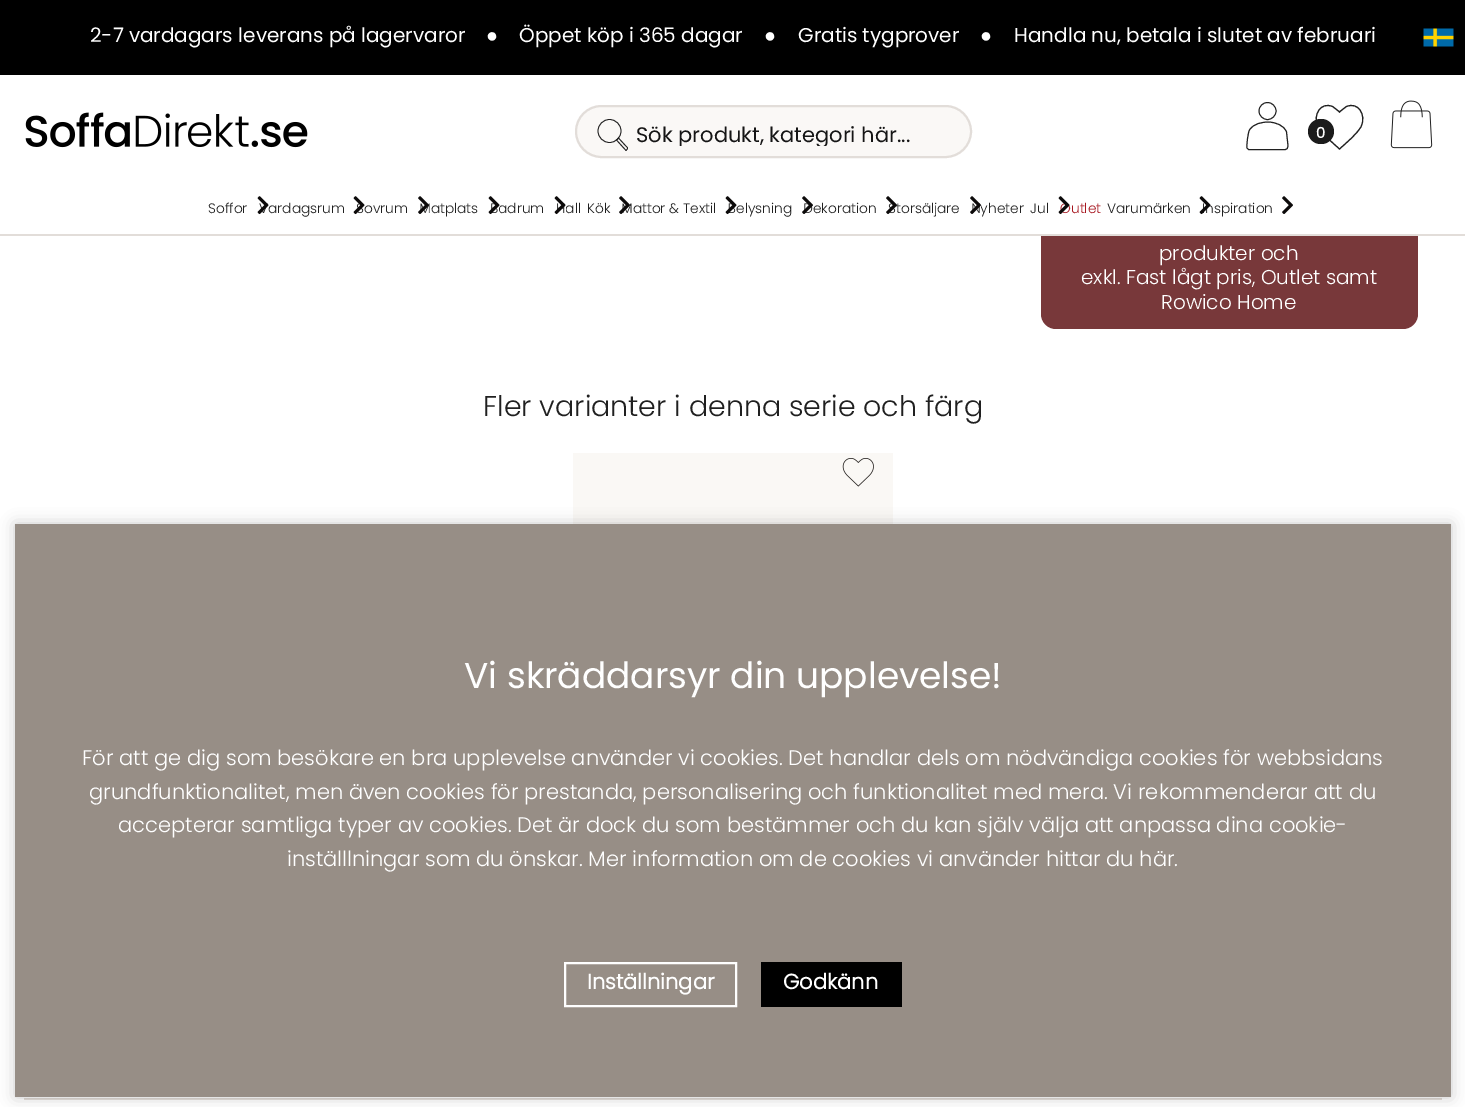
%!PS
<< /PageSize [1465 1107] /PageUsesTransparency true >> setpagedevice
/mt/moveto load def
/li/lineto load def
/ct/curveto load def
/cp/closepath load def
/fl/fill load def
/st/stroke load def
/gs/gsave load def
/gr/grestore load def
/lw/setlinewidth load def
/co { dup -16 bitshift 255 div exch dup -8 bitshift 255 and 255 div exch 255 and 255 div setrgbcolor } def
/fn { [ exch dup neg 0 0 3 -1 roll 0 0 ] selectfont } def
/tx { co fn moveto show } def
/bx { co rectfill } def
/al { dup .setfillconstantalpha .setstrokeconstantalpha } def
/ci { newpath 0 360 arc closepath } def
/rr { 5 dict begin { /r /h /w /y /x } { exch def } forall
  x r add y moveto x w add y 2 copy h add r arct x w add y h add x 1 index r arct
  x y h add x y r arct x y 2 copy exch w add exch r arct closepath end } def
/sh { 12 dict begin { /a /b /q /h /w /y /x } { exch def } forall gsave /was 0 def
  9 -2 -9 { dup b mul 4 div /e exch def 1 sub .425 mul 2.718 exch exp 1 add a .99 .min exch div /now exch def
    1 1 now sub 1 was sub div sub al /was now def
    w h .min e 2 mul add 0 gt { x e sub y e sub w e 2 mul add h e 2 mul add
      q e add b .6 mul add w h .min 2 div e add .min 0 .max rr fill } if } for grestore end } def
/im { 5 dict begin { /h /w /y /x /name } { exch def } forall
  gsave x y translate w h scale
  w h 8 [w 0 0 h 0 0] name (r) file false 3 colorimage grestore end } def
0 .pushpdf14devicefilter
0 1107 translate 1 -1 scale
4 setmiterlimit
0 0 1465 1107 16#FFFFFF bx
573 453 320 71 16#FAF8F5 bx
0 0 1465 75 16#000000 bx
(media/1.raw) 1423 28 31 19 im
(media/2.raw) 25 112 283 36 im
16#FAF8F6 co
576 106 395 51 25.5 rr gs fl gr
16#E2DDD9 co
2 lw
st
16#202020 co
.8 lw
609.5 131 11.5 ci st
1 setlinecap
1 setlinejoin
616.5 140 mt 618.5 138 li 624.5 144.5 li 627.5 148 629 147.5 626 150.5 ct cp st
16#78383A co
1041 80 377 249 15 rr fl
1041 80 377 154 16#FFFFFF bx
16#202020 co
.9 lw
0 setlinecap
0 setlinejoin
1267.5 111 8.5 ci st
1 lw
1285 149.5 mt 1248.5 149.5 li 1247 148 li 1246.5 144.5 1248 132.5 1249.5 130 ct 1253.5 123.5 1262 122 1269 122 ct 1275.5 122.5 1284 125 1286.5 132 ct 1287.5 141 li 1287.5 143.5 1289.5 149.5 1285 149.5 ct cp st
1.1 lw
1339.5 149 mt 1333 143 1320.5 133 1317.5 125.5 ct 1313 115 1320.5 101.5 1332.5 106.5 ct 1335 108 1337.5 110 1339.5 112 ct 1341.5 110 1344 108 1346.5 106.5 ct 1358.5 101.5 1366 115 1361.5 125.5 ct 1358.5 133 1346 143 1339.5 149 ct cp st
16#1C1C1C co
1308 119 26 25 12.5 rr fl
(media/3.raw) 1390 100 43 49 im
0 234 1465 2 16#E2DDD9 bx
(media/16.raw) 1282 196 11 18 im
(media/17.raw) 842 458 32 29 im
24 1098 1418 2 16#E2DDD9 bx
16#000000 co
15 524 1436 573 0 7.5 .2 sh
15 524 1436 573 16#978E86 bx
16#FFFFFF co
2 lw
565 963 171 43 rectstroke
761 962 141 45 16#000000 bx
(2-7 vardagars leverans på lagervaror) 90 42 /Poppins-Regular 20 16#FFFFFF tx
(●) 486 42 /LiberationSans-Regular 20 16#FFFFFF tx
(Öppet köp i 365 dagar) 519 42 /Poppins-Regular 20 16#FFFFFF tx
(●) 764 42 /LiberationSans-Regular 20 16#FFFFFF tx
(Gratis tygprover) 798 42 /Poppins-Regular 20 16#FFFFFF tx
(●) 980 42 /LiberationSans-Regular 20 16#FFFFFF tx
(Handla nu, betala i slutet av februari) 1014 42 /Poppins-Regular 20 16#FFFFFF tx
gs
608 125 331 21 rectclip
(Sök produkt, kategori här...) 636 142 /Poppins-Regular 21 16#151515 tx
gr
(0) 1316 138 /Poppins-Medium 15 16#FFFFFF tx
(Soffor) 208 213 /Poppins-Light 13.75 16#202020 tx
(Vardagsrum) 259 213 /Poppins-Light 13.75 16#202020 tx
(media/4.raw) 257 196 12 19 im
(Sovrum) 356 213 /Poppins-Light 13.75 16#202020 tx
(media/5.raw) 353 196 12 19 im
(Matplats) 419 213 /Poppins-Light 13.75 16#202020 tx
(media/6.raw) 418 196 11 18 im
(Badrum) 490 213 /Poppins-Light 13.75 16#202020 tx
(media/7.raw) 488 196 12 19 im
(Hall) 556 213 /Poppins-Light 13.75 16#202020 tx
(media/8.raw) 554 196 12 19 im
(Kök) 587 213 /Poppins-Light 13.75 16#202020 tx
(Mattor & Textil) 621 213 /Poppins-Light 13.75 16#202020 tx
(media/9.raw) 619 196 11 18 im
(Belysning) 728 213 /Poppins-Light 13.75 16#202020 tx
(media/10.raw) 725 196 12 19 im
(Dekoration) 803 213 /Poppins-Light 13.75 16#202020 tx
(media/11.raw) 802 196 11 18 im
(Storsäljare) 888 213 /Poppins-Light 13.75 16#202020 tx
(media/12.raw) 886 196 11 18 im
(Nyheter) 971 213 /Poppins-Light 13.75 16#202020 tx
(media/13.raw) 970 196 11 18 im
(Jul) 1030 213 /Poppins-Light 13.75 16#202020 tx
(Outlet) 1060 213 /Poppins-Light 13.75 16#A6151E tx
(media/14.raw) 1058 196 12 19 im
(Varumärken) 1107 213 /Poppins-Light 13.75 16#202020 tx
(Inspiration) 1202 213 /Poppins-Light 13.75 16#202020 tx
(media/15.raw) 1199 196 12 19 im
(produkter och) 1159 260 /Poppins-Light 20 16#FFFFFF tx
(exkl. Fast lågt pris, Outlet samt) 1081 284 /Poppins-Light 20 16#FFFFFF tx
(Rowico Home) 1161 309 /Poppins-Light 20 16#FFFFFF tx
(Fler varianter i denna serie och färg) 483 416 /Poppins-Light 28.5 16#202020 tx
(Vi skräddarsyr din upplevelse!) 464 688 /Poppins-Regular 36 16#FFFFFF tx
(För att ge dig som besökare en bra upplevelse använder vi cookies. Det handlar dels om nödvändiga cookies för webbsidans) 82 765 /Poppins-Light 21 16#FFFFFF tx
(grundfunktionalitet, men även cookies för prestanda, personalisering och funktionalitet med mera. Vi rekommenderar att du) 89 799 /Poppins-Light 21 16#FFFFFF tx
(accepterar samtliga typer av cookies. Det är dock du som bestämmer och du kan själv välja att anpassa dina cookie-) 118 832 /Poppins-Light 21 16#FFFFFF tx
(inställlningar som du önskar. Mer information om de cookies vi använder hittar du här.) 287 866 /Poppins-Light 21 16#FFFFFF tx
(Inställningar) 587 989 /Poppins-Bold 21 16#FFFFFF tx
(Godkänn) 783 989 /Poppins-Bold 21 16#FFFFFF tx
.poppdf14devicefilter showpage
